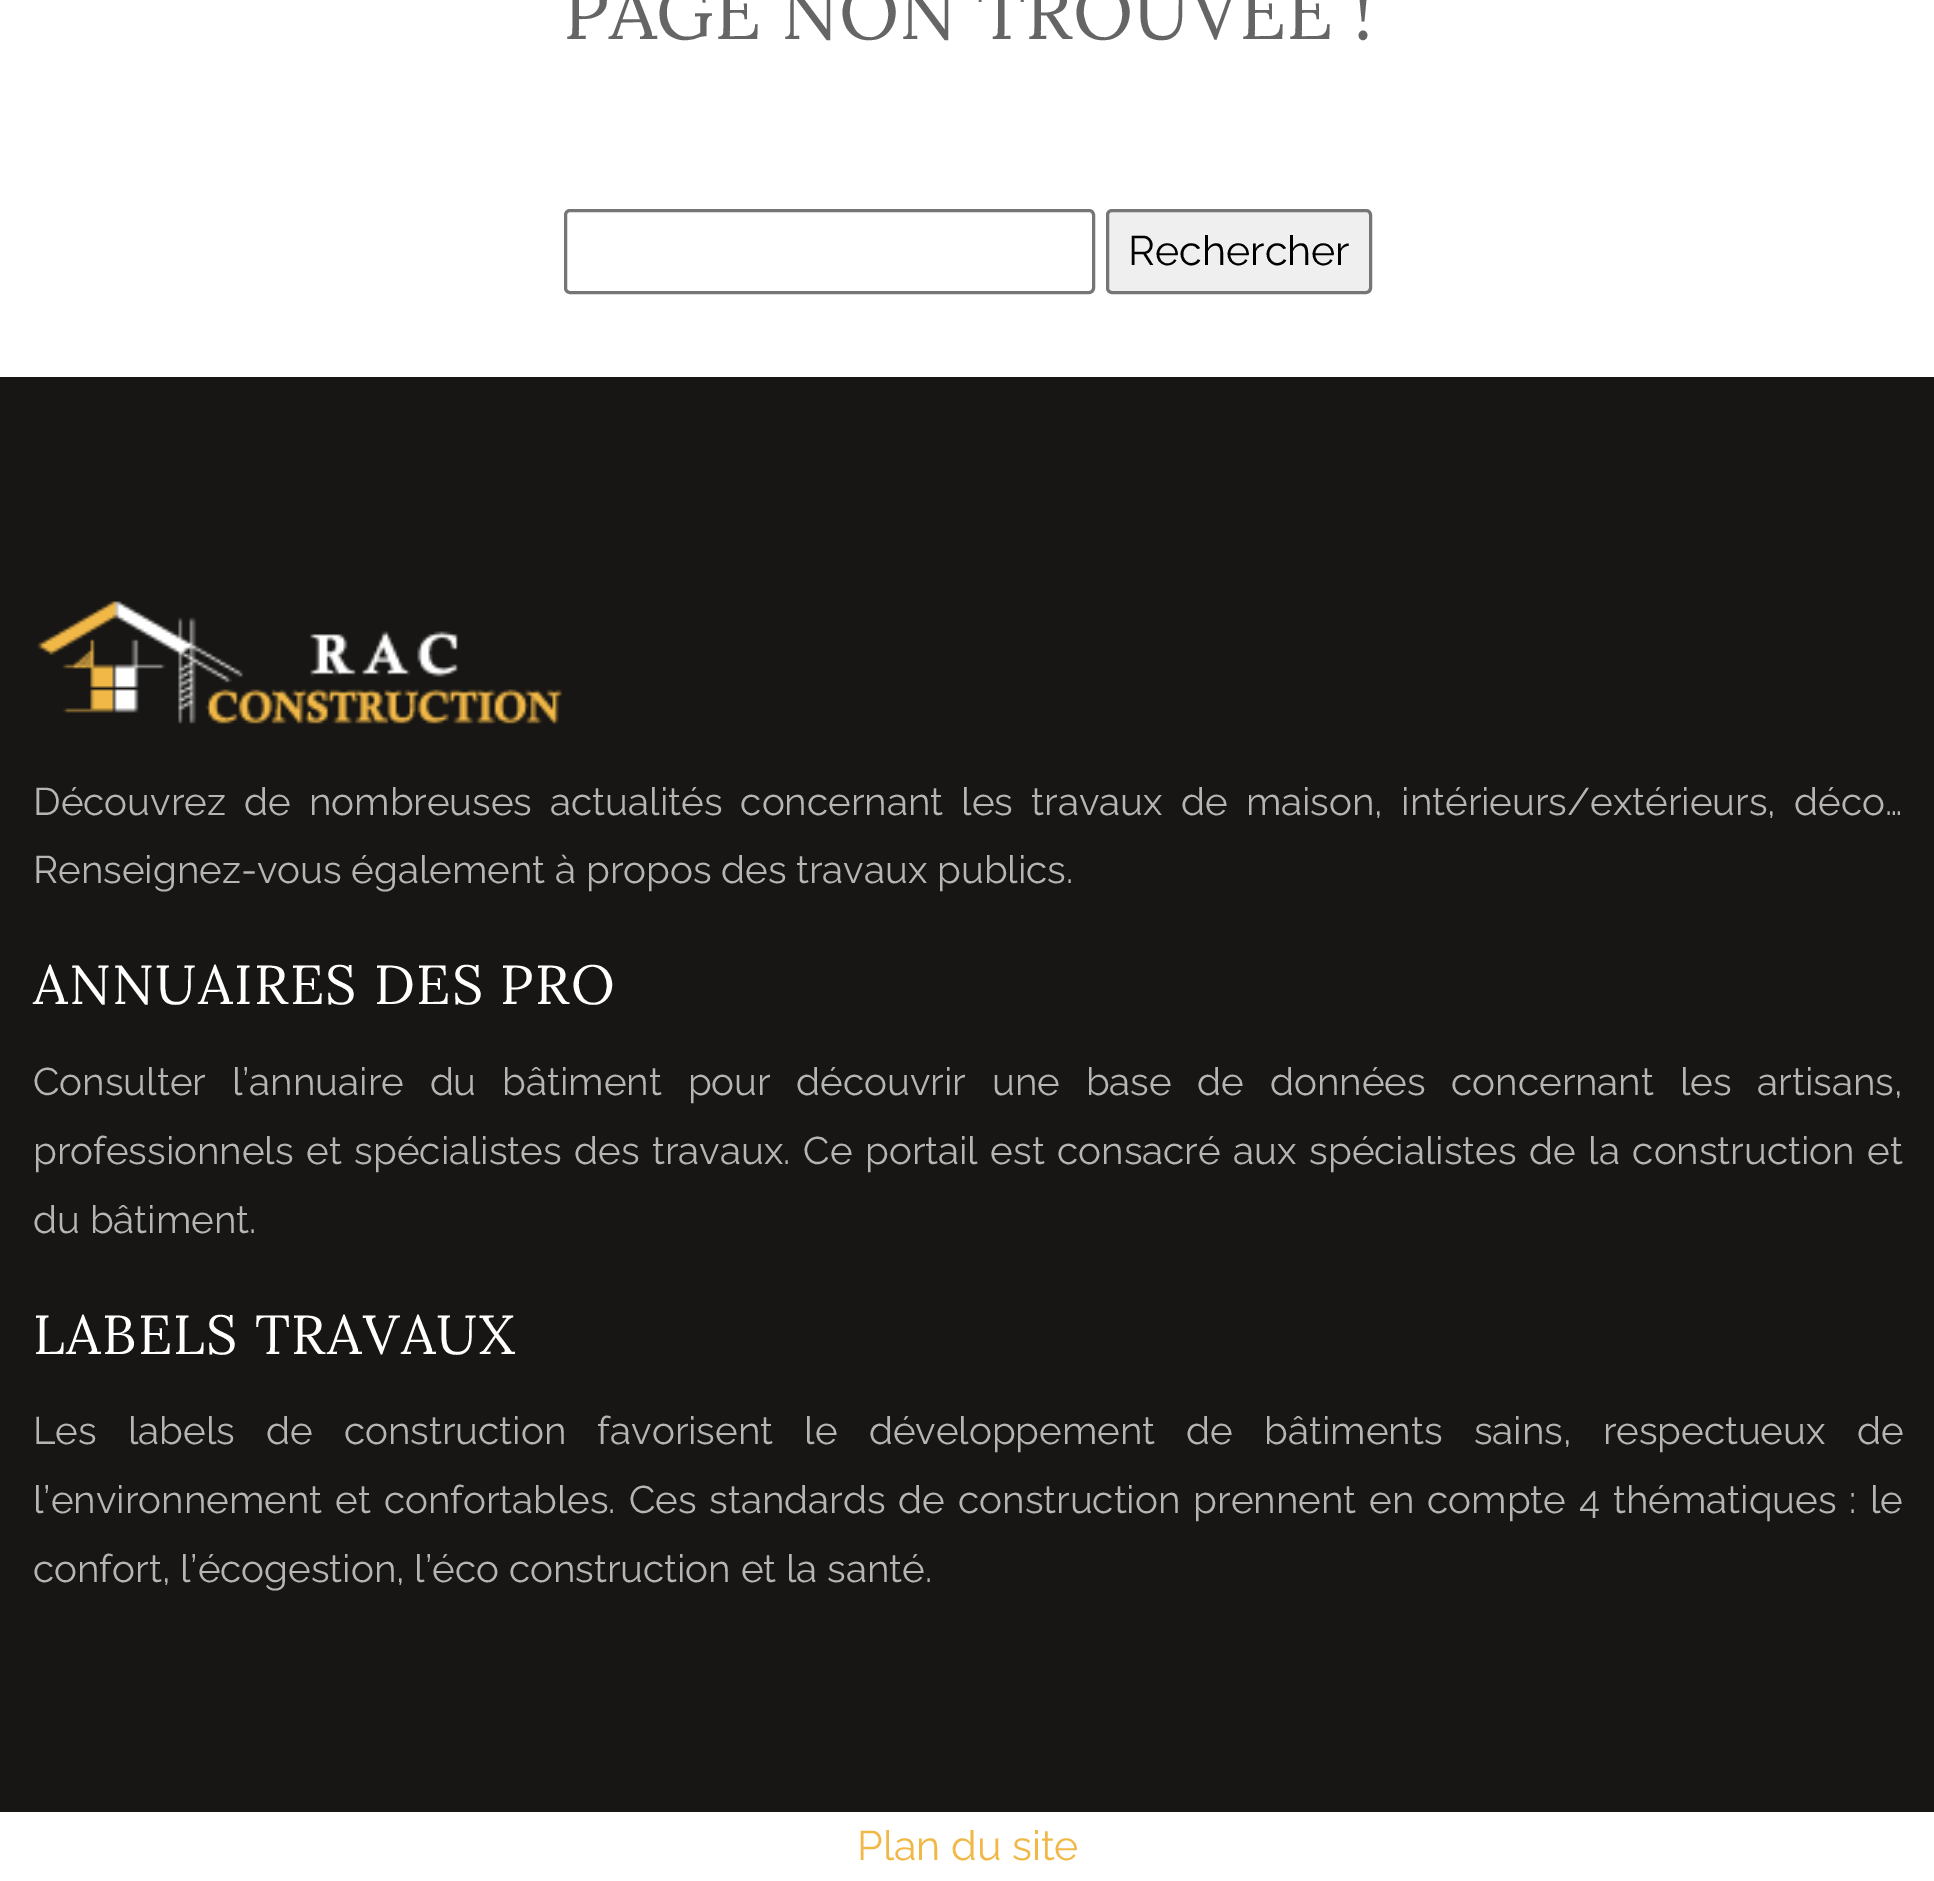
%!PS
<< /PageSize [1934 1881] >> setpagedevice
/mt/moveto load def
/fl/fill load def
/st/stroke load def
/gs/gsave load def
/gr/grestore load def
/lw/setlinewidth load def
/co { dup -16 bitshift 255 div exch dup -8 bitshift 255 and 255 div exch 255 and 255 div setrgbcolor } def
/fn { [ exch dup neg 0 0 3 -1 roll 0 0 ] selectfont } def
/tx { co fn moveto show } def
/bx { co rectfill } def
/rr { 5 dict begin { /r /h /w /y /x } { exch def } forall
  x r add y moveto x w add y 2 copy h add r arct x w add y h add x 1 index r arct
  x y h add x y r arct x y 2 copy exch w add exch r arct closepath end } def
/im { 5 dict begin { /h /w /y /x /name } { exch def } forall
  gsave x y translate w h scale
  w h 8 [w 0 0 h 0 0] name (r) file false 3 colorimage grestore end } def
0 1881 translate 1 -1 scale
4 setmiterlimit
0 0 1934 1881 16#FFFFFF bx
16#767676 co
3 lw
565.5 210.5 528 82 4.5 rr st
16#EFEFEF co
1107.5 210.5 263 82 4.5 rr gs fl gr
16#767676 co
st
0 377 1934 1435 16#171615 bx
(media/1.raw) 37 601 525 123 im
(PAGE NON TROUVÉE !) 563 39 /Lora-Regular 75.75 16#656565 tx
(Rechercher) 1128 265 /Raleway-Regular 41.25 16#000000 tx
/Raleway-Regular 38.5 fn
16#B5B5B5 co
33 815 mt 8.5 0 32 (Découvrez de nombreuses actualités concernant les travaux de maison, intérieurs/extérieurs, déco…) widthshow
(Renseignez-vous également à propos des travaux publics.) 33 883 /Raleway-Regular 38.5 16#B5B5B5 tx
/Lora-Regular 55 fn
16#FFFFFF co
33 1004 mt 1.4 0 (ANNUAIRES DES PRO) ashow
/Raleway-Regular 38.5 fn
16#B5B5B5 co
33 1095 mt 16.1 0 32 (Consulter l’annuaire du bâtiment pour découvrir une base de données concernant les artisans,) widthshow
33 1164 mt 2.9 0 32 (professionnels et spécialistes des travaux. Ce portail est consacré aux spécialistes de la construction et) widthshow
(du bâtiment.) 33 1233 /Raleway-Regular 38.5 16#B5B5B5 tx
/Lora-Regular 55 fn
16#FFFFFF co
33 1354 mt 1.4 0 (LABELS TRAVAUX) ashow
/Raleway-Regular 38.5 fn
16#B5B5B5 co
33 1444 mt 21.5 0 32 (Les labels de construction favorisent le développement de bâtiments sains, respectueux de) widthshow
33 1513 mt 3.25 0 32 (l’environnement et confortables. Ces standards de construction prennent en compte 4 thématiques : le) widthshow
(confort, l’écogestion, l’éco construction et la santé.) 33 1582 /Raleway-Regular 38.5 16#B5B5B5 tx
(Plan du site) 857 1860 /Raleway-Regular 41.25 16#F1B847 tx
showpage
